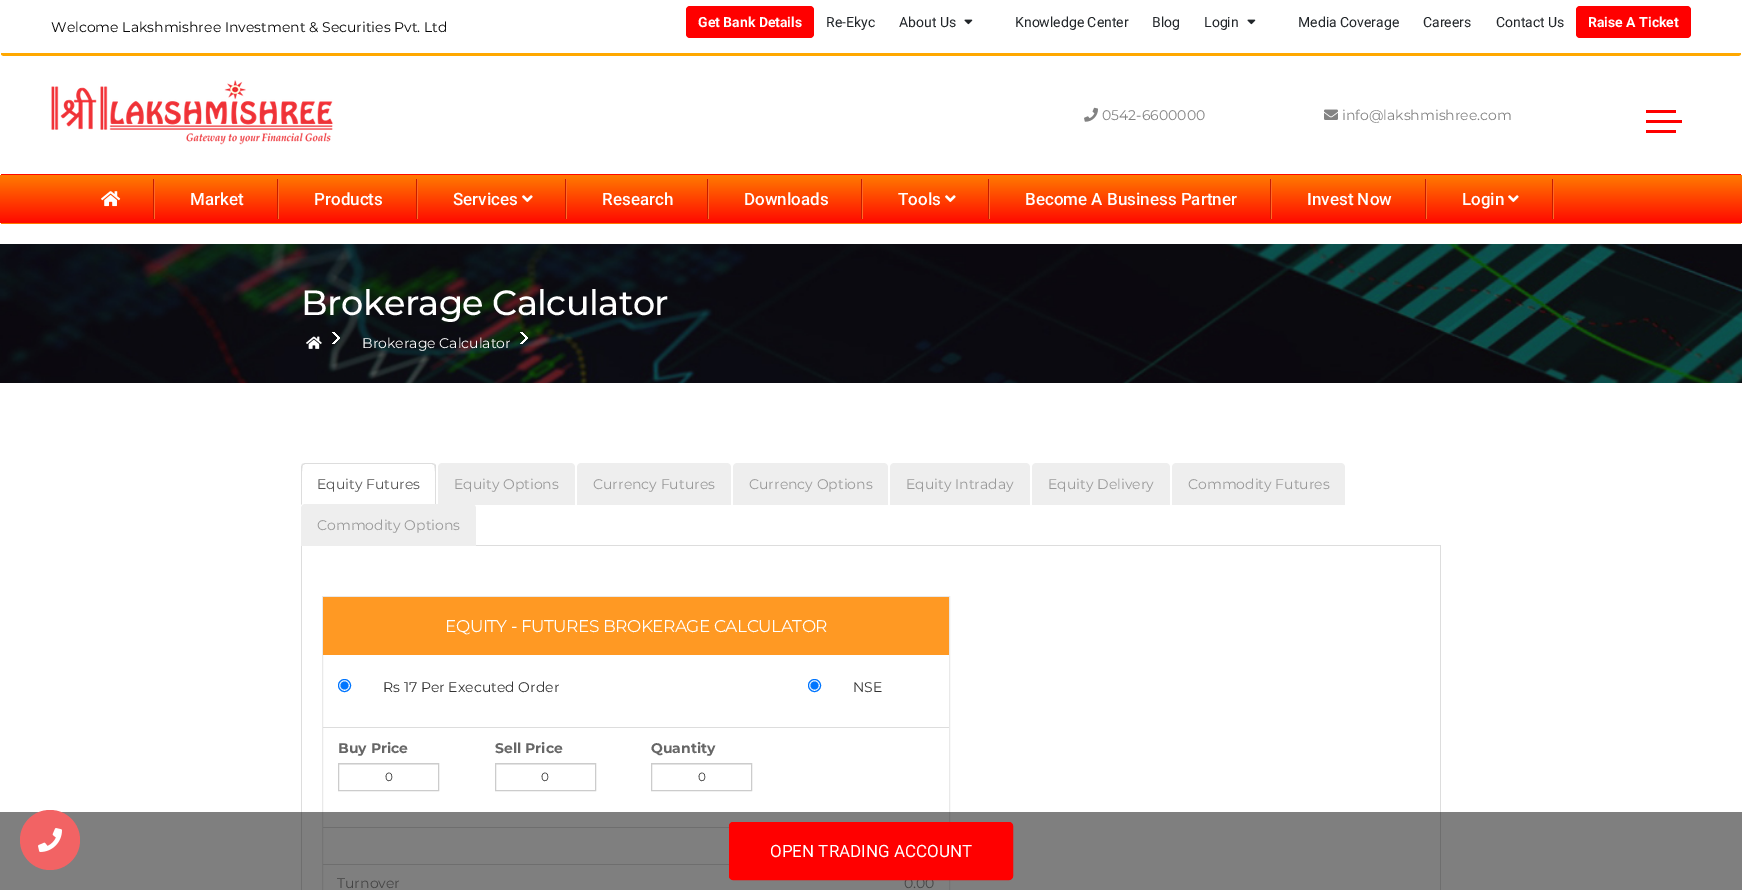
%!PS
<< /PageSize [1742 890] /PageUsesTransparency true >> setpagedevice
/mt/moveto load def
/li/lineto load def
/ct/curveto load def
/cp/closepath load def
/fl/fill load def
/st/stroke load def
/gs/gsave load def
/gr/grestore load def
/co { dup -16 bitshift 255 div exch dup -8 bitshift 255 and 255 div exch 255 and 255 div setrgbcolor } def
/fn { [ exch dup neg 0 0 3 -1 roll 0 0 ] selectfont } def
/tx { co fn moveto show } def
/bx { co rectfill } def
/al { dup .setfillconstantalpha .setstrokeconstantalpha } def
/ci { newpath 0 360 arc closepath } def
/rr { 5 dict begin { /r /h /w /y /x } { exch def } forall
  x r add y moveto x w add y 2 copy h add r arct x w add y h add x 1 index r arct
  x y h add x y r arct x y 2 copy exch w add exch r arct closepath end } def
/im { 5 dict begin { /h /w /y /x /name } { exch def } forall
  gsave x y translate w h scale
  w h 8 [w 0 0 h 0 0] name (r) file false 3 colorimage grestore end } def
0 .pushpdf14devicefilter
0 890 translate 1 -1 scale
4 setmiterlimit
0 0 1742 890 16#FFFFFF bx
16#FFA800 co
4 56 mt 1738 56 li 1739 56 1741 55 1741 54 ct 1741 53 li 1738 53 li 4 53 li 1 53 li 1 54 li 1 55 3 56 4 56 ct cp fl
16#FF0000 co
686 6 128 32 4 rr fl
(media/1.raw) 964 19 9 6 im
(media/1.raw) 1247 19 9 6 im
1576 6 115 32 4 rr fl
(media/2.raw) 51 80 282 65 im
(media/3.raw) 1084 107 14 15 im
(media/4.raw) 1324 109 14 11 im
1646 110 30 3 16#FF0000 bx
1646 120 36 3 16#FF0000 bx
1646 130 30 3 16#FF0000 bx
gs
0 174 1742 50 4 rr clip newpath
gs 0 174 mt 1742 174 li 1742 175 li 0 175 li cp clip newpath
<< /ShadingType 2 /ColorSpace /DeviceRGB /Coords [871 127 871 175] /Extend [true true] /Function << /FunctionType 2 /Domain [0 1] /C0 [1 .482 0] /C1 [1 .035 0] /N 1 >> >> shfill gr
gs 0 175 mt 1742 175 li 1742 223 li 0 223 li cp clip newpath
<< /ShadingType 2 /ColorSpace /DeviceRGB /Coords [871 175 871 223] /Extend [true true] /Function << /FunctionType 2 /Domain [0 1] /C0 [1 .482 0] /C1 [1 .035 0] /N 1 >> >> shfill gr
gs 0 223 mt 1742 223 li 1742 224 li 0 224 li cp clip newpath
<< /ShadingType 2 /ColorSpace /DeviceRGB /Coords [871 223 871 271] /Extend [true true] /Function << /FunctionType 2 /Domain [0 1] /C0 [1 .482 0] /C1 [1 .035 0] /N 1 >> >> shfill gr
gr
(media/5.raw) 153 179 2 40 im
(media/6.raw) 101 191 20 16 im
(media/5.raw) 277 179 2 40 im
(media/5.raw) 416 179 2 40 im
(media/5.raw) 565 179 2 40 im
(media/7.raw) 522 195 11 7 im
(media/5.raw) 707 179 2 40 im
(media/5.raw) 861 179 2 40 im
(media/5.raw) 988 179 2 40 im
(media/7.raw) 945 195 11 7 im
(media/5.raw) 1270 179 2 40 im
(media/5.raw) 1425 179 2 40 im
(media/5.raw) 1552 179 2 40 im
(media/7.raw) 1508 195 11 7 im
(media/8.raw) 0 244 1742 139 im
(media/9.raw) 306 336 16 13 im
(media/10.raw) 332 332 8 12 im
(media/11.raw) 520 332 8 12 im
476 545 965 1 16#DDDDDD bx
305 463 mt 302 464 li 303 465 li 305 464 li 432 464 li 434 465 li 435 464 li 432 463 li cp fl
436 505 mt 436 467 li 436 466 436 465 435 464 ct 434 465 li 436 467 435 499 435 504 ct cp fl
301 505 mt 302 504 li 302 499 301 467 303 465 ct 302 464 li 301 467 li cp fl
16#EEEEEE co
442 463 mt 571 463 li 573 463 575 465 575 467 ct 575 505 li 438 505 li 438 467 li 438 465 440 463 442 463 ct cp fl
581 463 mt 727 463 li 729 463 731 465 731 467 ct 731 505 li 577 505 li 577 467 li 577 465 579 463 581 463 ct cp fl
737 463 mt 884 463 li 886 463 888 465 888 467 ct 888 505 li 733 505 li 733 467 li 733 465 735 463 737 463 ct cp fl
894 463 mt 1026 463 li 1028 463 1030 465 1030 467 ct 1030 505 li 890 505 li 890 467 li 890 465 892 463 894 463 ct cp fl
1036 463 mt 1166 463 li 1168 463 1170 465 1170 467 ct 1170 505 li 1032 505 li 1032 467 li 1032 465 1034 463 1036 463 ct cp fl
1176 463 mt 1341 463 li 1343 463 1345 465 1345 467 ct 1345 505 li 1172 505 li 1172 467 li 1172 465 1174 463 1176 463 ct cp fl
305 504 mt 472 504 li 474 504 476 506 476 508 ct 476 546 li 301 546 li 301 508 li 301 506 303 504 305 504 ct cp fl
16#DDDDDD co
301 546 mt 1441 546 li 1441 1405 li 1441 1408 1439 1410 1436 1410 ct 306 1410 li 303 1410 301 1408 301 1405 ct cp 302 546 mt 1440 546 li 1440 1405 li 1440 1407 1438 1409 1436 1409 ct 306 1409 li 304 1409 302 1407 302 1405 ct cp eofill
16#E9E9E9 co
322.5 596.5 627 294 rectstroke
323 597 626 58 16#FF9923 bx
16#0075FF co
344.5 685.5 6 ci st
344.5 685.5 4 ci fl
814.5 685.5 6 ci st
814.5 685.5 4 ci fl
323 727 626 1 16#DDDDDD bx
339 764 99 1 16#ECECEC bx
16#CCCCCC co
338.5 763.5 100 27 rectstroke
496 764 99 1 16#ECECEC bx
16#CCCCCC co
495.5 763.5 100 27 rectstroke
652 764 99 1 16#ECECEC bx
16#CCCCCC co
651.5 763.5 100 27 rectstroke
323 827 406 1 16#DDDDDD bx
323 864 406 1 16#DDDDDD bx
(Welcome Lakshmishree Investment & Securities Pvt. Ltd) 51 32 /Montserrat-Regular 14 16#080808 tx
(Get Bank Details) 698 27 /Roboto-Bold 14 16#FFFFFF tx
(Re-Ekyc) 826 27 /Roboto-Regular 14 16#212529 tx
(About Us) 899 27 /Roboto-Regular 14 16#212529 tx
(Knowledge Center) 1015 27 /Roboto-Regular 14 16#212529 tx
(Blog) 1152 27 /Roboto-Regular 14 16#212529 tx
(Login) 1204 27 /Roboto-Regular 14 16#212529 tx
(Media Coverage) 1298 27 /Roboto-Regular 14 16#212529 tx
(Careers) 1423 27 /Roboto-Regular 14 16#212529 tx
(Contact Us) 1496 27 /Roboto-Regular 14 16#212529 tx
(Raise A Ticket) 1588 27 /Roboto-Bold 14 16#FFFFFF tx
(0542-6600000) 1102 120 /Montserrat-Regular 14 16#828282 tx
(info@lakshmishree.com) 1342 120 /Montserrat-Regular 14 16#828282 tx
(Market) 190 205 /Roboto-Medium 17 16#FFFFFF tx
(Products) 314 205 /Roboto-Medium 17 16#FFFFFF tx
(Services) 453 205 /Roboto-Medium 17 16#FFFFFF tx
(Research) 602 205 /Roboto-Medium 17 16#FFFFFF tx
(Downloads) 744 205 /Roboto-Medium 17 16#FFFFFF tx
(Tools) 898 205 /Roboto-Medium 17 16#FFFFFF tx
(Become A Business Partner) 1025 205 /Roboto-Medium 17 16#FFFFFF tx
(Invest Now) 1307 205 /Roboto-Medium 17 16#FFFFFF tx
(Login) 1462 205 /Roboto-Medium 17 16#FFFFFF tx
/Montserrat-Medium 35 fn
301 315 mt -.5 0 (Brokerage Calculator) ashow
(Brokerage Calculator) 362 348 /Montserrat-Regular 14 16#FFFFFF tx
(Equity Futures) 317 489 /Montserrat-Regular 14 16#555555 tx
(Equity Options) 454 489 /Montserrat-Regular 14 16#999999 tx
(Currency Futures) 593 489 /Montserrat-Regular 14 16#999999 tx
(Currency Options) 749 489 /Montserrat-Regular 14 16#999999 tx
(Equity Intraday) 906 489 /Montserrat-Regular 14 16#999999 tx
(Equity Delivery) 1048 489 /Montserrat-Regular 14 16#999999 tx
(Commodity Futures) 1188 489 /Montserrat-Regular 14 16#999999 tx
(Commodity Options) 317 530 /Montserrat-Regular 14 16#999999 tx
/Montserrat-Regular 17 fn
16#FFFFFF co
445 632 mt -.5 0 (EQUITY - FUTURES BROKERAGE CALCULATOR) ashow
(Rs 17 Per Executed Order) 383 692 /Montserrat-Regular 14 16#333333 tx
(NSE) 853 692 /Montserrat-Regular 14 16#333333 tx
(Buy Price) 338 753 /Montserrat-Bold 14 16#666666 tx
(0) 385 781 /Montserrat-Regular 12 16#333333 tx
(Sell Price) 495 753 /Montserrat-Bold 14 16#666666 tx
(0) 541 781 /Montserrat-Regular 12 16#333333 tx
(Quantity) 651 753 /Montserrat-Bold 14 16#666666 tx
(0) 698 781 /Montserrat-Regular 12 16#333333 tx
(Turnover) 337 888 /Montserrat-Regular 14 16#888888 tx
(0.00) 904 888 /Montserrat-Regular 14 16#888888 tx
0.5 al
0 812 1742 78 16#000000 bx
1 al
16#F26364 co
50 840 30 ci fl
(media/12.raw) 38 828 24 24 im
16#FF0000 co
729.5 822.5 283 57 3.5 rr gs fl gr
st
(OPEN TRADING ACCOUNT) 770 857 /Roboto-Regular 17 16#FFFFFF tx
.poppdf14devicefilter showpage
